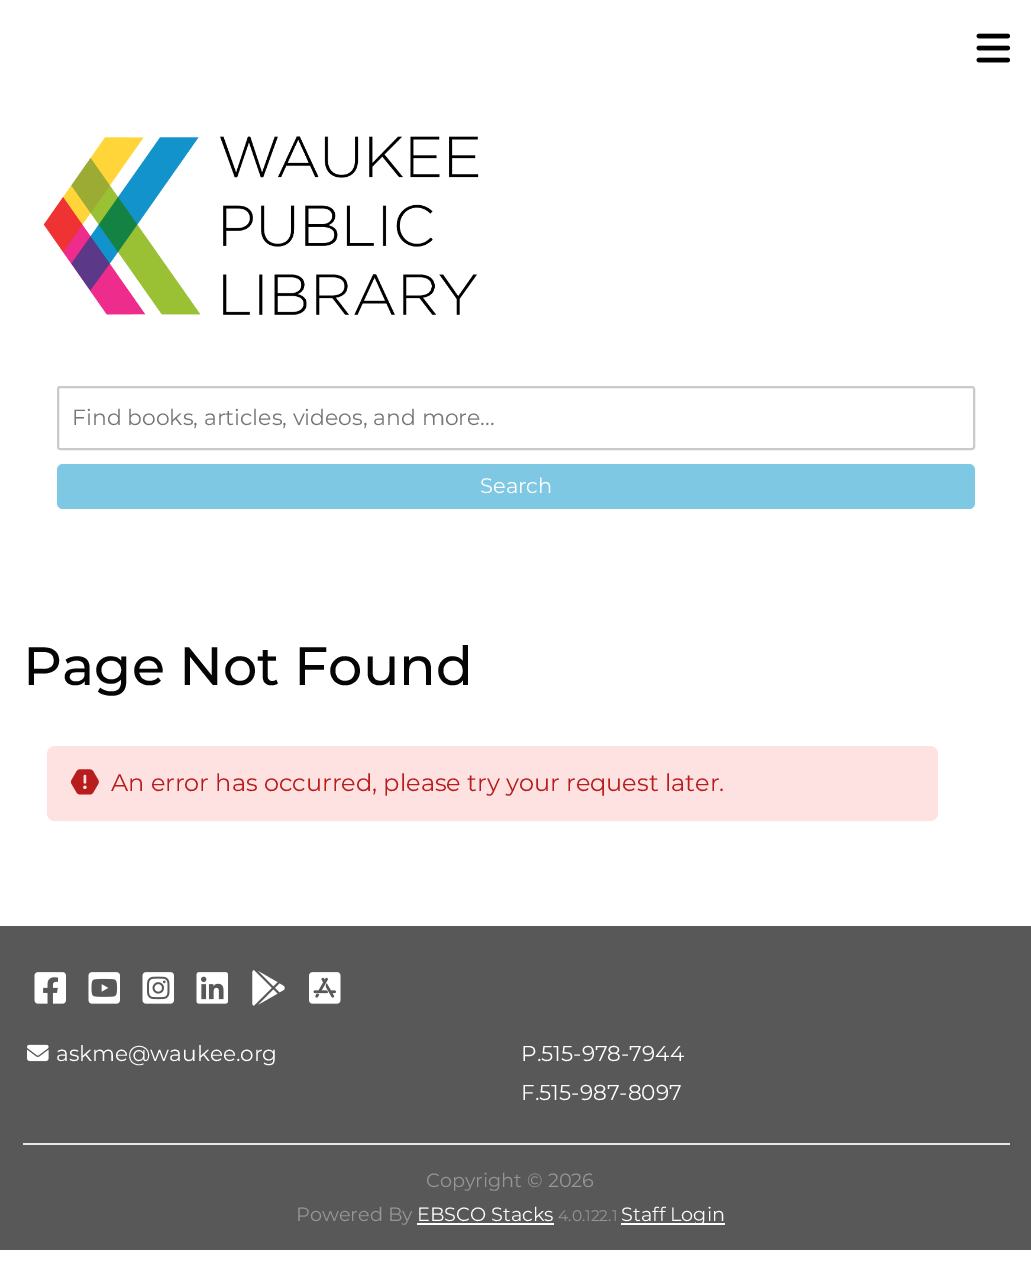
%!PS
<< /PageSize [1031 1272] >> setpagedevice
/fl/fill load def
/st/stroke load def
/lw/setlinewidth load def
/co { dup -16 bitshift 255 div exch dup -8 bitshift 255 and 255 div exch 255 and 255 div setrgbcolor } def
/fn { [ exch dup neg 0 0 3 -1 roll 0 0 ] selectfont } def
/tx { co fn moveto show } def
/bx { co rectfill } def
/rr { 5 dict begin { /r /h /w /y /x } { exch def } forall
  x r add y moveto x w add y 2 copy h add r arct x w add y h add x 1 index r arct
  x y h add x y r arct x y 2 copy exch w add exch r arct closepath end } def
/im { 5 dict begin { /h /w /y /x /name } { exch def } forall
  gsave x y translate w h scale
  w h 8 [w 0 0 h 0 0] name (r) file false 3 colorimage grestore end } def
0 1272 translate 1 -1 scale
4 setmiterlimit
0 0 1031 1272 16#FFFFFF bx
(media/1.raw) 976 33 35 30 im
(media/2.raw) 43 136 436 179 im
16#CACACA co
2 lw
58 387 916 62 2 rr st
16#7EC8E3 co
57 464 918 45 6 rr fl
16#FEE2E2 co
47 746 891 75 8 rr fl
(media/3.raw) 70 769 29 26 im
0 926 1031 324 16#585858 bx
(media/4.raw) 34 972 32 32 im
(media/5.raw) 88 972 32 32 im
(media/6.raw) 142 972 32 32 im
(media/7.raw) 196 972 32 32 im
(media/8.raw) 252 970 33 36 im
(media/9.raw) 309 972 32 32 im
(media/10.raw) 27 1044 22 18 im
23 1143 987 2 16#E6E6E6 bx
417 1223 137 2 16#FFFFFF bx
621 1223 104 2 16#FFFFFF bx
(Find books, articles, videos, and more...) 72 425 /Montserrat-Thin 21.9 16#757575 tx
(Search) 480 493 /Montserrat-Thin 21 16#FFFFFF tx
(Page Not Found) 23 685 /Montserrat-Medium 54 16#050505 tx
(An error has occurred, please try your request later.) 111 791 /Montserrat-Thin 24 16#B91C1C tx
(askme@waukee.org) 56 1061 /Montserrat-Thin 21.6 16#FFFFFF tx
(P.515-978-7944) 521 1061 /Montserrat-Thin 21.6 16#FFFFFF tx
(F.515-987-8097) 521 1100 /Montserrat-Thin 21.6 16#FFFFFF tx
(Copyright © 2026) 426 1187 /Montserrat-Thin 19.25 16#969696 tx
(Powered By) 296 1221 /Montserrat-Thin 19.25 16#969696 tx
(EBSCO Stacks) 417 1221 /Montserrat-Thin 19.25 16#FFFFFF tx
(4.0.122.1) 558 1221 /Montserrat-Thin 15.5 16#969696 tx
(Staff Login) 621 1221 /Montserrat-Thin 19.25 16#FFFFFF tx
showpage
